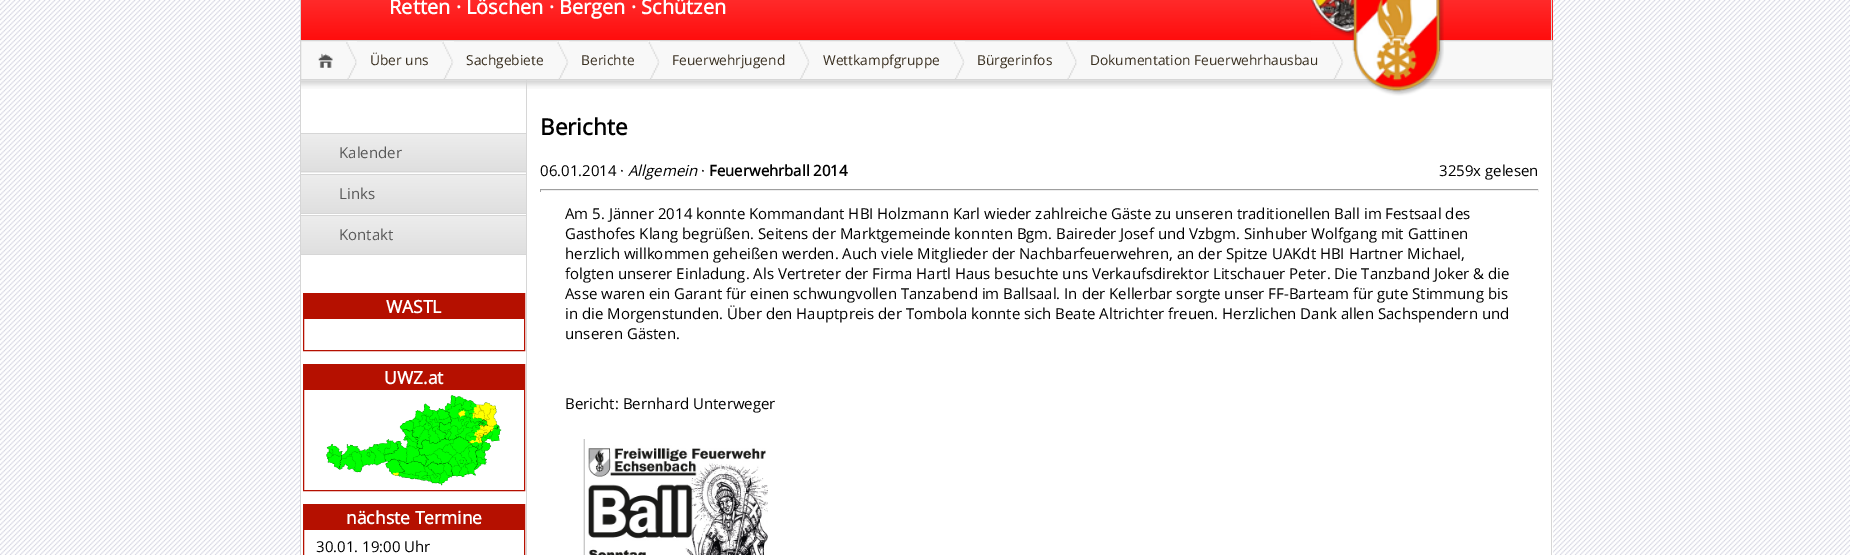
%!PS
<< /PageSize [1850 555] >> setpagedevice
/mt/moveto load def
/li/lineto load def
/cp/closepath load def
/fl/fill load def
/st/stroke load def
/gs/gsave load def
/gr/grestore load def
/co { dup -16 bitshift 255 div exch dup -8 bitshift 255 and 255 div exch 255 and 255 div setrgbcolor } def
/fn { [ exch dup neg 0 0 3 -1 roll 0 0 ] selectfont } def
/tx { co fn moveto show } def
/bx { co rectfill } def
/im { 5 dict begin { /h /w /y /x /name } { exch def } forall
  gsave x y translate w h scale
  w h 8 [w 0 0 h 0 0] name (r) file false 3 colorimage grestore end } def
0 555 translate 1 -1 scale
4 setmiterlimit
0 0 1850 555 16#FFFFFF bx
(media/1.raw) 0 0 1850 555 im
gs 301 0 mt 1553 0 li 1553 40 li 301 40 li cp clip newpath
<< /ShadingType 2 /ColorSpace /DeviceRGB /Coords [926 -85 926 40] /Extend [true true] /Function << /FunctionType 2 /Domain [0 1] /C0 [1 .412 .412] /C1 [1 .051 .051] /N 1 >> >> shfill gr
1551 0 1 40 16#D6D6D6 bx
300 0 1 40 16#D6D6D6 bx
16#F8F8F8 co
300.5 40.5 mt 1552.5 40.5 li 1552.5 79.5 li 300.5 79.5 li cp gs fl gr
16#D6D6D6 co
st
(media/3.raw) 318 53 15 15 im
(media/4.raw) 346 41 11 38 im
(media/5.raw) 442 41 12 38 im
(media/6.raw) 557 41 12 38 im
(media/7.raw) 648 41 12 38 im
(media/8.raw) 798 41 12 38 im
(media/9.raw) 953 41 12 38 im
(media/10.raw) 1066 41 11 38 im
(media/5.raw) 1332 41 12 38 im
301 80 1252 475 16#FFFFFF bx
gs 301 134 mt 526 134 li 526 171 li 301 171 li cp clip newpath
<< /ShadingType 2 /ColorSpace /DeviceRGB /Coords [414 134 414 171] /Extend [true true] /Function << /FunctionType 2 /Domain [0 1] /C0 [.929 .929 .929] /C1 [.875 .875 .875] /N 1 >> >> shfill gr
gs 301 172 mt 526 172 li 526 173 li 301 173 li cp clip newpath
<< /ShadingType 2 /ColorSpace /DeviceRGB /Coords [414 171 414 209] /Extend [true true] /Function << /FunctionType 2 /Domain [0 1] /C0 [.929 .929 .929] /C1 [.875 .875 .875] /N 1 >> >> shfill gr
301 133 225 1 16#D6D6D6 bx
301 171 225 1 16#D6D6D6 bx
gs 301 175 mt 526 175 li 526 213 li 301 213 li cp clip newpath
<< /ShadingType 2 /ColorSpace /DeviceRGB /Coords [414 175 414 213] /Extend [true true] /Function << /FunctionType 2 /Domain [0 1] /C0 [.929 .929 .929] /C1 [.875 .875 .875] /N 1 >> >> shfill gr
301 174 225 1 16#D6D6D6 bx
301 213 225 1 16#D6D6D6 bx
gs 301 216 mt 526 216 li 526 254 li 301 254 li cp clip newpath
<< /ShadingType 2 /ColorSpace /DeviceRGB /Coords [414 216 414 254] /Extend [true true] /Function << /FunctionType 2 /Domain [0 1] /C0 [.929 .929 .929] /C1 [.875 .875 .875] /N 1 >> >> shfill gr
301 215 225 1 16#D6D6D6 bx
301 254 225 1 16#D6D6D6 bx
16#B51000 co
303.5 293.5 221 57 rectstroke
304 294 220 25 16#B51000 bx
303.5 364.5 221 126 rectstroke
304 365 220 25 16#B51000 bx
(media/11.raw) 326 395 176 91 im
303.5 504.5 221 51 rectstroke
304 505 220 25 16#B51000 bx
(media/12.raw) 301 80 1252 9 im
1551 80 1 475 16#D6D6D6 bx
300 80 1 475 16#D6D6D6 bx
526 80 1 475 16#D6D6D6 bx
540 189 999 1 16#9F9F9F bx
1538 189 1 3 16#EEEEEE bx
540 190 999 1 16#EEEEEE bx
540 189 1 3 16#9F9F9F bx
(media/13.raw) 583 439 185 116 im
(Retten · Löschen · Bergen · Schützen) 389 14 /OpenSans-Bold 20 16#FFFFFF tx
(Über uns) 370 65 /OpenSans-Regular 13.75 16#382E1F tx
(Sachgebiete) 466 65 /OpenSans-Regular 13.75 16#382E1F tx
(Berichte) 581 65 /OpenSans-Regular 13.75 16#382E1F tx
(Feuerwehrjugend) 672 65 /OpenSans-Regular 13.75 16#382E1F tx
(Wettkampfgruppe) 823 65 /OpenSans-Regular 13.75 16#382E1F tx
(Bürgerinfos) 977 65 /OpenSans-Regular 13.75 16#382E1F tx
(Dokumentation Feuerwehrhausbau) 1090 65 /OpenSans-Regular 13.75 16#382E1F tx
(media/2.raw) 1311 0 133 96 im
(Kalender) 339 158 /OpenSans-Regular 15 16#595959 tx
(Links) 339 199 /OpenSans-Regular 15 16#595959 tx
(Kontakt) 339 240 /OpenSans-Regular 15 16#595959 tx
(WASTL) 386 313 /OpenSans-Bold 17.5 16#FFFFFF tx
(UWZ.at) 384 384 /OpenSans-Bold 17.5 16#FFFFFF tx
(nächste Termine) 346 524 /OpenSans-Bold 17.5 16#FFFFFF tx
(30.01. 19:00 Uhr) 316 552 /OpenSans-Regular 15 16#000000 tx
(Berichte) 540 135 /OpenSans-Bold 22.5 16#000000 tx
(06.01.2014 ·) 540 176 /OpenSans-Regular 15 16#000000 tx
(Allgemein) 628 176 /OpenSans-Italic 15 16#000000 tx
(·) 701 176 /OpenSans-Regular 15 16#000000 tx
(Feuerwehrball 2014) 709 176 /OpenSans-Bold 15 16#000000 tx
(3259x gelesen) 1439 176 /OpenSans-Regular 15 16#000000 tx
(Am 5. Jänner 2014 konnte Kommandant HBI Holzmann Karl wieder zahlreiche Gäste zu unseren traditionellen Ball im Festsaal des) 565 219 /OpenSans-Regular 15 16#000000 tx
(Gasthofes Klang begrüßen. Seitens der Marktgemeinde konnten Bgm. Baireder Josef und Vzbgm. Sinhuber Wolfgang mit Gattinen) 565 239 /OpenSans-Regular 15 16#000000 tx
(herzlich willkommen geheißen werden. Auch viele Mitglieder der Nachbarfeuerwehren, an der Spitze UAKdt HBI Hartner Michael,) 565 259 /OpenSans-Regular 15 16#000000 tx
(folgten unserer Einladung. Als Vertreter der Firma Hartl Haus besuchte uns Verkaufsdirektor Litschauer Peter. Die Tanzband Joker & die) 565 279 /OpenSans-Regular 15 16#000000 tx
(Asse waren ein Garant für einen schwungvollen Tanzabend im Ballsaal. In der Kellerbar sorgte unser FF-Barteam für gute Stimmung bis) 565 299 /OpenSans-Regular 15 16#000000 tx
(in die Morgenstunden. Über den Hauptpreis der Tombola konnte sich Beate Altrichter freuen. Herzlichen Dank allen Sachspendern und) 565 319 /OpenSans-Regular 15 16#000000 tx
(unseren Gästen.) 565 339 /OpenSans-Regular 15 16#000000 tx
(Bericht: Bernhard Unterweger) 565 409 /OpenSans-Regular 15 16#000000 tx
showpage
